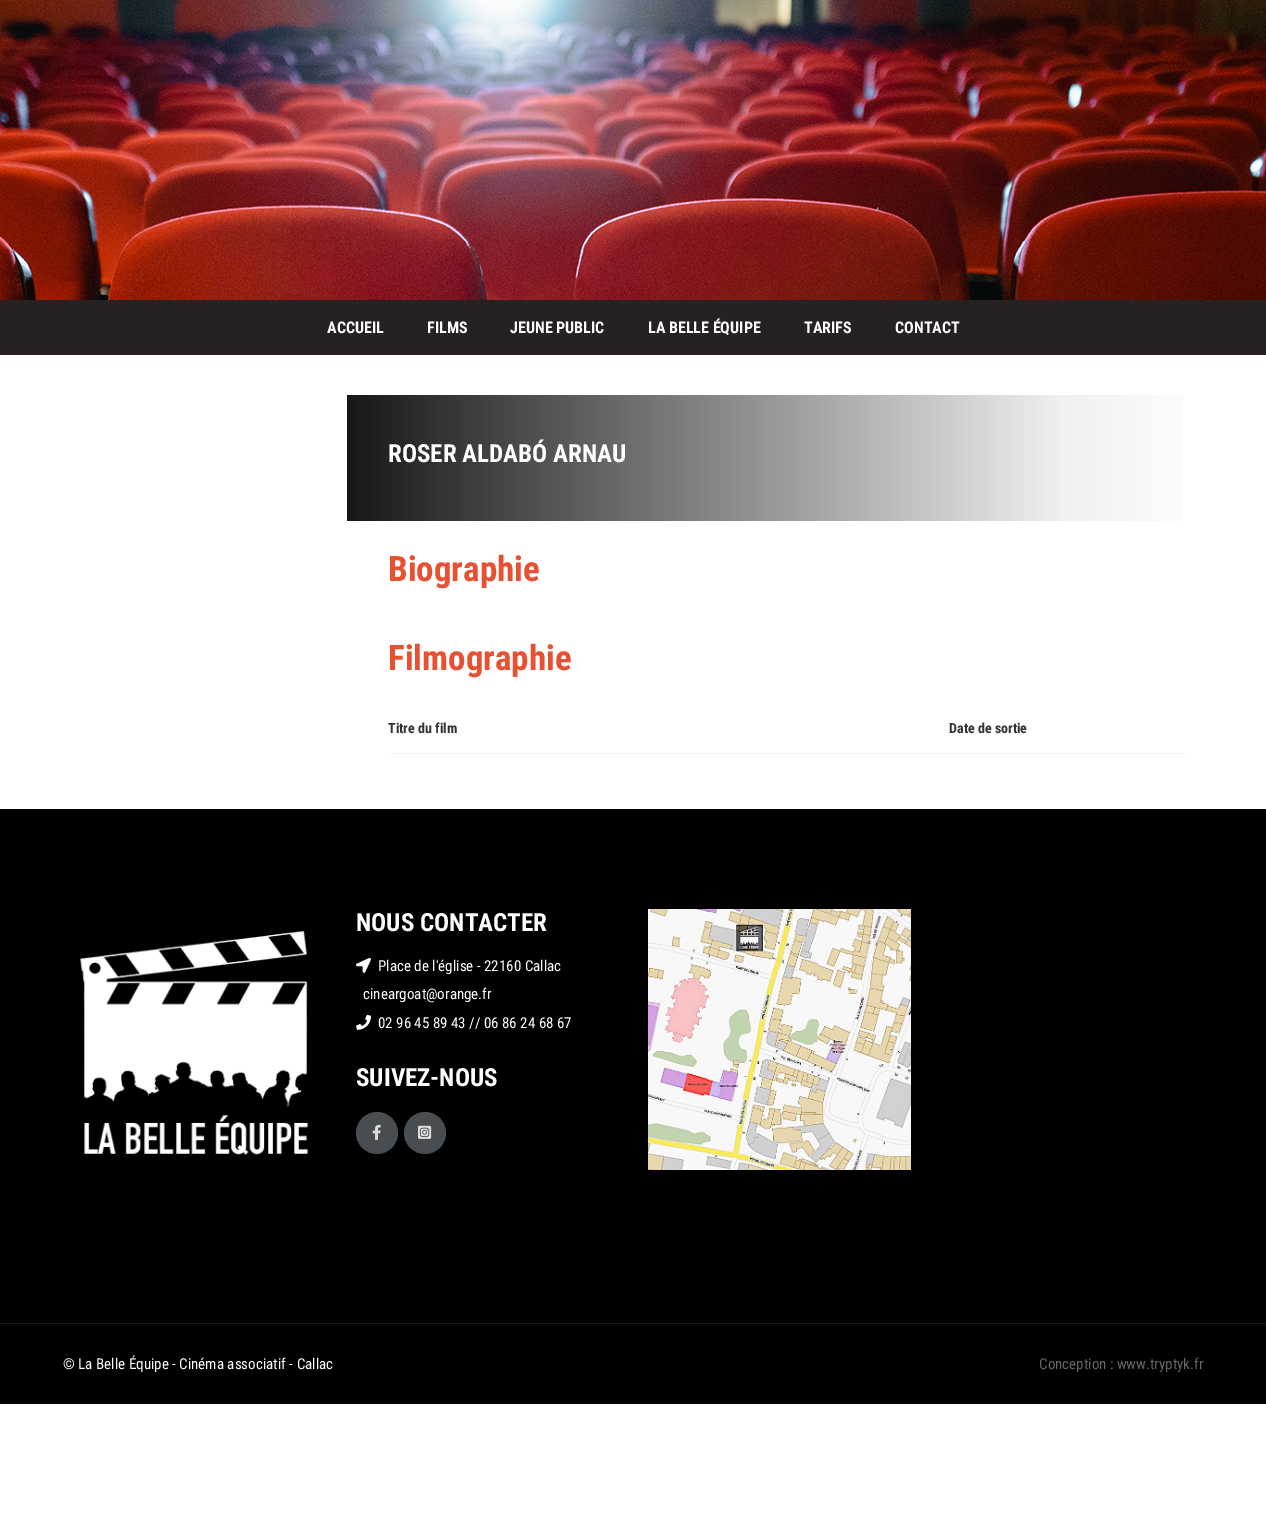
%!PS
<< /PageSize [1266 1529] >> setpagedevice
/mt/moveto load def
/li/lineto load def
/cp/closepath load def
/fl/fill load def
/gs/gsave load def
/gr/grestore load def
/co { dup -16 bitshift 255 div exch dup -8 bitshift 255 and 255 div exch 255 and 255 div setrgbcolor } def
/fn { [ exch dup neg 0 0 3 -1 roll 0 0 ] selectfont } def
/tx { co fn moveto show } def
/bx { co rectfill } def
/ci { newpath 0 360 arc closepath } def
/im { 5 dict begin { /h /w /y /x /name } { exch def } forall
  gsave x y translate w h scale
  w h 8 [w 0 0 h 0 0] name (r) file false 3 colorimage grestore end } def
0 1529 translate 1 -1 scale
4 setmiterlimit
0 0 1266 1529 16#FFFFFF bx
(media/1.raw) 0 0 1266 300 im
0 300 1266 55 16#272121 bx
gs 347 395 mt 1183 395 li 1183 521 li 347 521 li cp clip newpath
<< /ShadingType 2 /ColorSpace /DeviceRGB /Coords [347 458 1188 458] /Extend [true true] /Function << /FunctionType 3 /Domain [0 1] /Functions [<< /FunctionType 2 /Domain [0 1] /C0 [.09 .09 .09] /C1 [.941 .941 .941] /N 1 >> << /FunctionType 2 /Domain [0 1] /C0 [.941 .941 .941] /C1 [.992 .992 .992] /N 1 >>] /Bounds [.85] /Encode [0 1 0 1] >> >> shfill gr
388 753 800 1 16#F6F6F6 bx
0 809 1266 514 16#000000 bx
(media/2.raw) 80 931 228 224 im
(media/3.raw) 356 957 15 16 im
(media/4.raw) 356 1014 15 16 im
16#484D51 co
377 1133 21 ci fl
(media/5.raw) 372 1124 9 16 im
425 1133 21 ci fl
(media/6.raw) 418 1125 14 14 im
(media/7.raw) 648 909 263 261 im
0 1324 1266 80 16#000000 bx
0 1323 1266 1 16#1A1A1A bx
(ACCUEIL) 327 333 /RobotoCondensed-Bold 16 16#FFFFFF tx
(FILMS) 427 333 /RobotoCondensed-Bold 16 16#FFFFFF tx
(JEUNE PUBLIC) 510 333 /RobotoCondensed-Bold 16 16#FFFFFF tx
(LA BELLE ÉQUIPE) 648 333 /RobotoCondensed-Bold 16 16#FFFFFF tx
(TARIFS) 804 333 /RobotoCondensed-Bold 16 16#FFFFFF tx
(CONTACT) 895 333 /RobotoCondensed-Bold 16 16#FFFFFF tx
(ROSER ALDABÓ ARNAU) 388 462 /RobotoCondensed-Bold 25 16#FFFFFF tx
(Biographie) 388 581 /RobotoCondensed-Bold 35 16#E75031 tx
(Filmographie) 388 670 /RobotoCondensed-Bold 35 16#E75031 tx
(Titre du film) 388 733 /RobotoCondensed-Bold 14 16#333333 tx
(Date de sortie) 949 733 /RobotoCondensed-Bold 14 16#333333 tx
(NOUS CONTACTER) 356 931 /RobotoCondensed-Bold 25 16#FFFFFF tx
(Place de l'église - 22160 Callac) 378 971 /RobotoCondensed-Regular 15 16#FFFFFF tx
(cineargoat@orange.fr) 363 999 /RobotoCondensed-Regular 15 16#FFFFFF tx
(02 96 45 89 43 // 06 86 24 68 67) 378 1028 /RobotoCondensed-Regular 15 16#FFFFFF tx
(SUIVEZ-NOUS) 356 1086 /RobotoCondensed-Bold 25 16#FFFFFF tx
(© La Belle Équipe - Cinéma associatif - Callac) 63 1369 /RobotoCondensed-Regular 15 16#FFFFFF tx
(Conception : www.tryptyk.fr) 1039 1369 /RobotoCondensed-Regular 15 16#666666 tx
showpage
